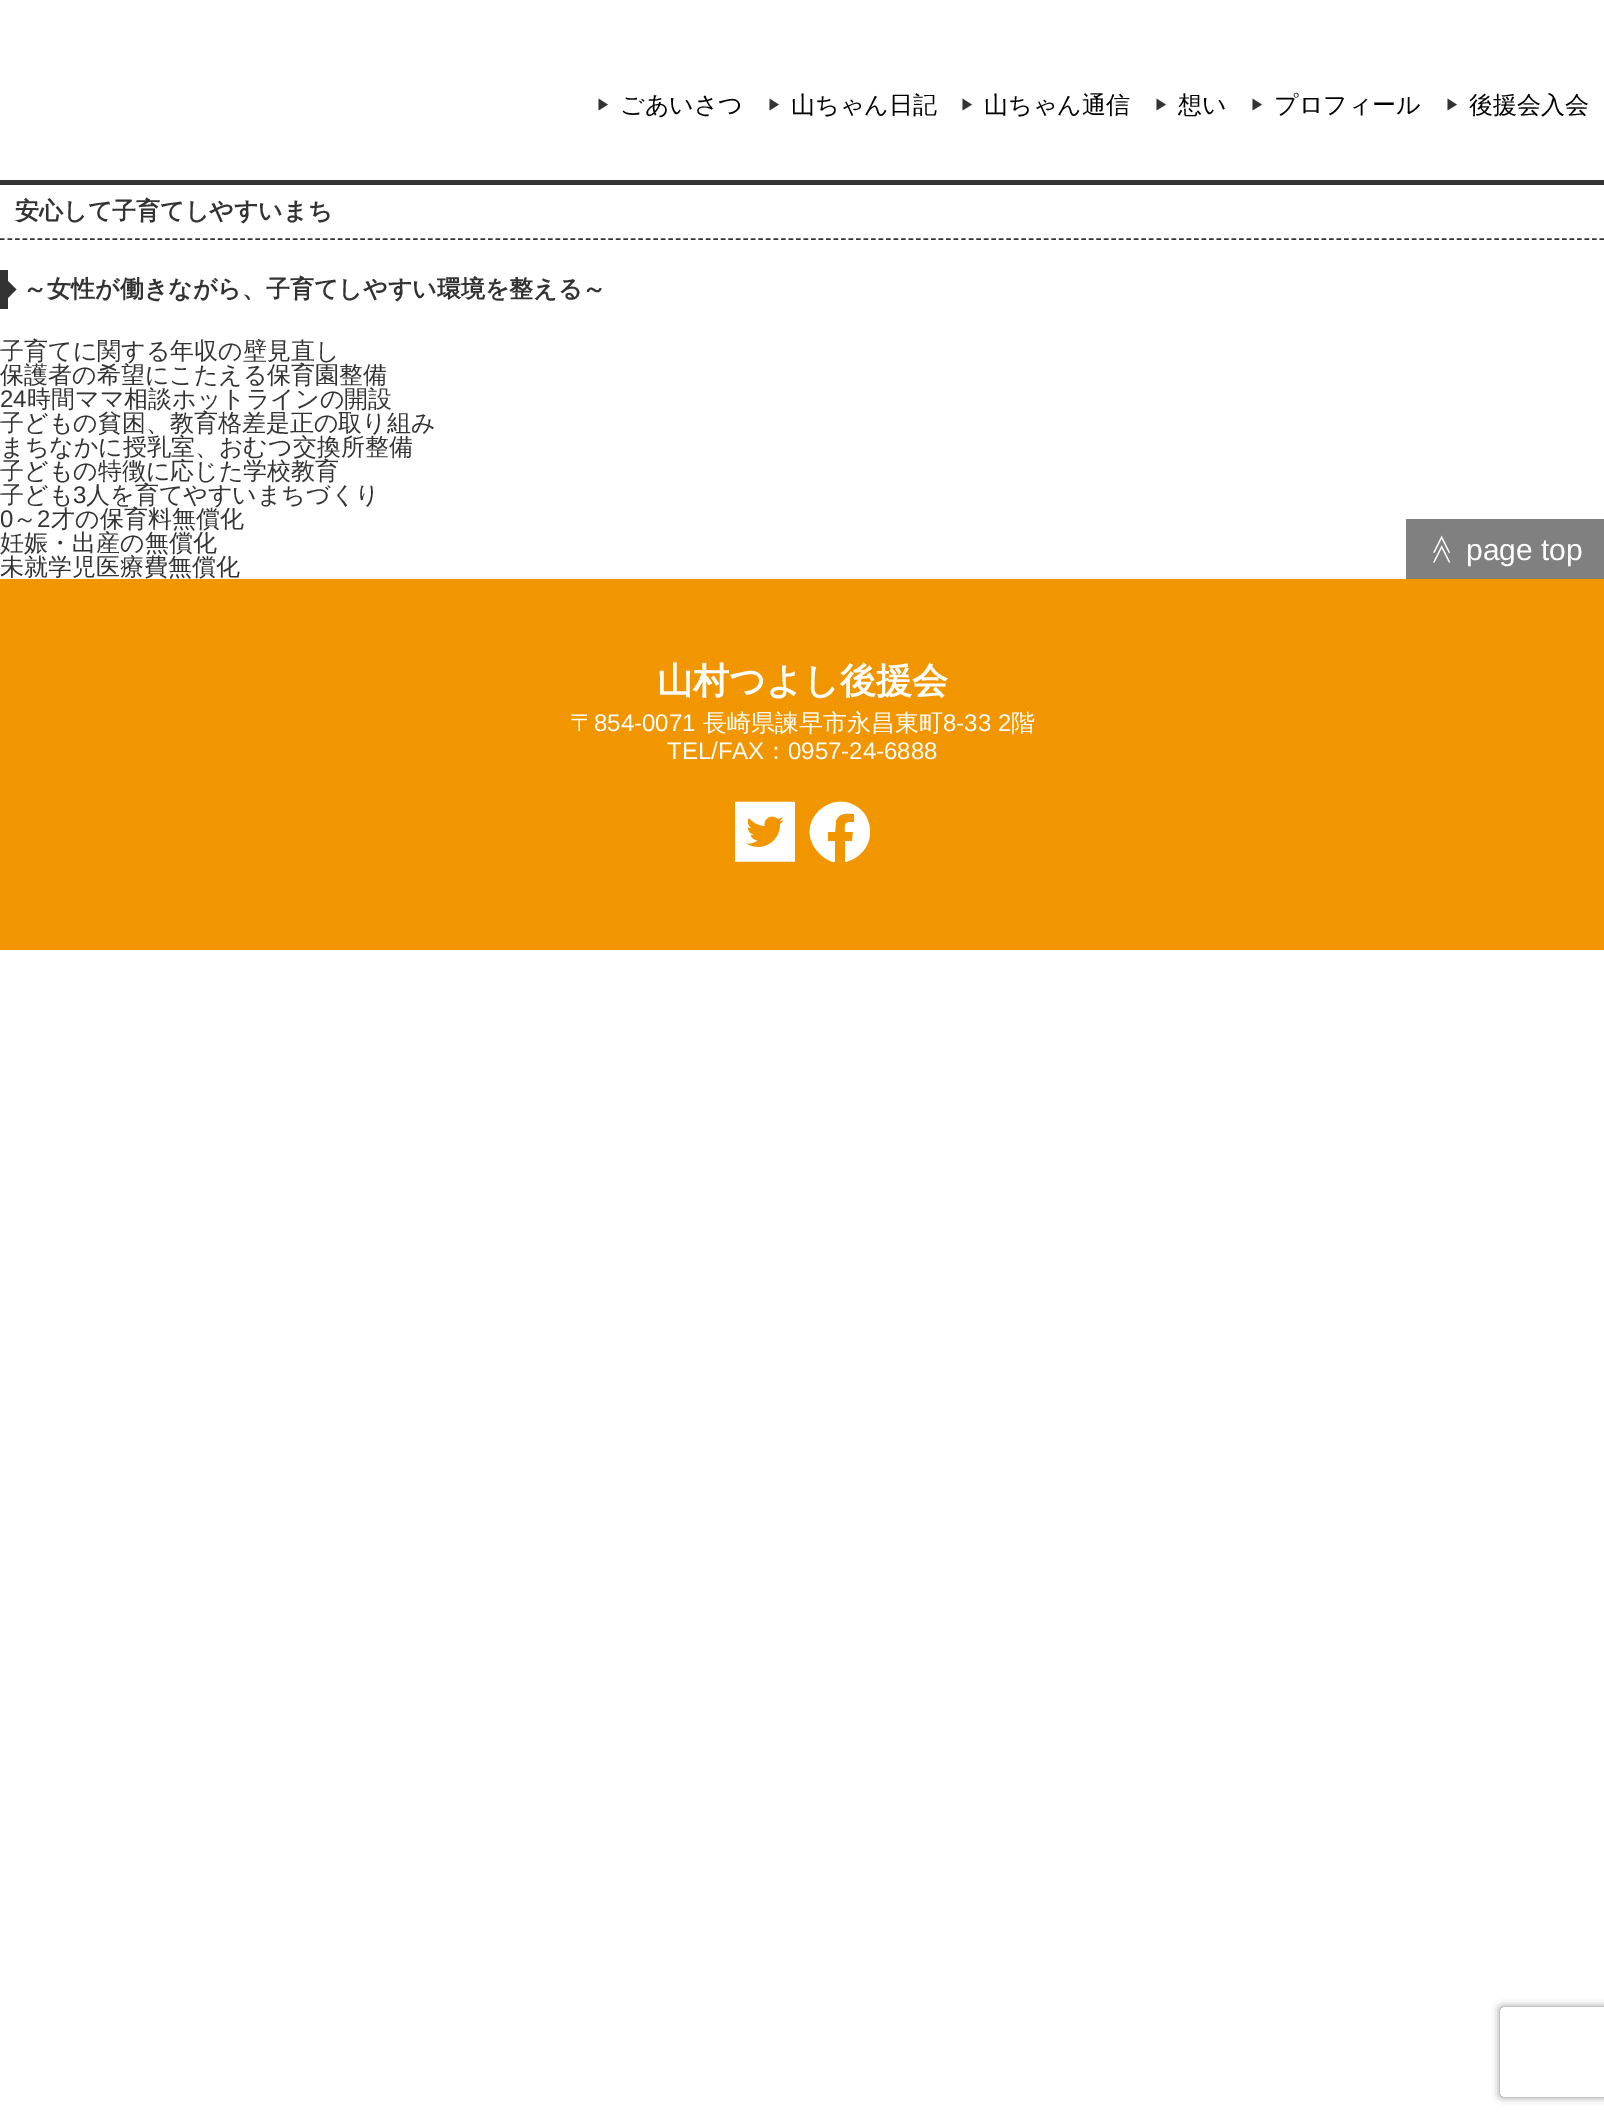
%!PS
<< /PageSize [1604 2117] /PageUsesTransparency true >> setpagedevice
/mt/moveto load def
/li/lineto load def
/ct/curveto load def
/cp/closepath load def
/fl/fill load def
/st/stroke load def
/gs/gsave load def
/gr/grestore load def
/lw/setlinewidth load def
/co { dup -16 bitshift 255 div exch dup -8 bitshift 255 and 255 div exch 255 and 255 div setrgbcolor } def
/fn { [ exch dup neg 0 0 3 -1 roll 0 0 ] selectfont } def
/tx { co fn moveto show } def
/bx { co rectfill } def
/al { dup .setfillconstantalpha .setstrokeconstantalpha } def
/rr { 5 dict begin { /r /h /w /y /x } { exch def } forall
  x r add y moveto x w add y 2 copy h add r arct x w add y h add x 1 index r arct
  x y h add x y r arct x y 2 copy exch w add exch r arct closepath end } def
/sh { 12 dict begin { /a /b /q /h /w /y /x } { exch def } forall gsave /was 0 def
  9 -2 -9 { dup b mul 4 div /e exch def 1 sub .425 mul 2.718 exch exp 1 add a .99 .min exch div /now exch def
    1 1 now sub 1 was sub div sub al /was now def
    w h .min e 2 mul add 0 gt { x e sub y e sub w e 2 mul add h e 2 mul add
      q e add b .6 mul add w h .min 2 div e add .min 0 .max rr fill } if } for grestore end } def
/im { 5 dict begin { /h /w /y /x /name } { exch def } forall
  gsave x y translate w h scale
  w h 8 [w 0 0 h 0 0] name (r) file false 3 colorimage grestore end } def
0 .pushpdf14devicefilter
0 2117 translate 1 -1 scale
4 setmiterlimit
0 0 1604 2117 16#FFFFFF bx
0 180 1604 5 16#333333 bx
1.5 lw
[4.5 3.01] 0 setdash
0 239 mt 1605 239 li st
0 270 8 39 16#333333 bx
7.5 298.5 mt 7.5 280.5 li 16.5 289.5 li cp fl
1406 519 198 60 16#808080 bx
0 579 1604 371 16#F29600 bx
(media/1.raw) 735 801 60 61 im
16#FFFFFF co
870 832 mt 870 824 867 816 862 811 ct 836 785 795 819 815 848 ct 819 854 828 862 835 862 ct 835 841 li 828 841 li 828 832 li 835 832 li 836 821 li 838 813 847 813 854 814 ct 854 822 li 844 822 845 823 845 832 ct 853 832 li 852 841 li 845 841 li 845 862 li 859 859 870 847 870 832 ct cp fl
gs
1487 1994 mt 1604 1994 li 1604 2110 li 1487 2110 li cp 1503 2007 mt 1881 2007 li 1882.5 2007 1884 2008.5 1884 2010 ct 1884 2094 li 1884 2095.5 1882.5 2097 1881 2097 ct 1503 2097 li 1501.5 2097 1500 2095.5 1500 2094 ct 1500 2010 li 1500 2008.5 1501.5 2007 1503 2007 ct cp eoclip newpath
16#808080 co
1500 2007 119 90 3 4 1 sh
gr
(▶) 596 110 /WenQuanYiZenHei-Medium 15 16#333333 tx
(ごあいさつ) 620 113 /WenQuanYiZenHei-Medium 24 16#000000 tx
(▶) 767 110 /WenQuanYiZenHei-Medium 15 16#333333 tx
(山ちゃん日記) 791 113 /WenQuanYiZenHei-Medium 24 16#000000 tx
(▶) 960 110 /WenQuanYiZenHei-Medium 15 16#333333 tx
(山ちゃん通信) 984 113 /WenQuanYiZenHei-Medium 24 16#000000 tx
(▶) 1154 110 /WenQuanYiZenHei-Medium 15 16#333333 tx
(想い) 1178 113 /WenQuanYiZenHei-Medium 24 16#000000 tx
(▶) 1250 110 /WenQuanYiZenHei-Medium 15 16#333333 tx
(プロフィール) 1274 113 /WenQuanYiZenHei-Medium 24 16#000000 tx
(▶) 1445 110 /WenQuanYiZenHei-Medium 15 16#333333 tx
(後援会入会) 1469 113 /WenQuanYiZenHei-Medium 24 16#000000 tx
(安心して子育てしやすいまち) 15 219 /WenQuanYiZenHei-Bold 24 16#333333 tx
(～女性が働きながら、子育てしやすい環境を整える～) 23 297 /WenQuanYiZenHei-Bold 24 16#333333 tx
(子育てに関する年収の壁見直し) 0 359 /WenQuanYiZenHei-Medium 24 16#333333 tx
(保護者の希望にこたえる保育園整備) 0 383 /WenQuanYiZenHei-Medium 24 16#333333 tx
(24) 0 407 /LiberationSans-Regular 24 16#333333 tx
(時間ママ相談ホットラインの開設) 27 407 /WenQuanYiZenHei-Medium 24 16#333333 tx
(子どもの貧困、教育格差是正の取り組み) 0 431 /WenQuanYiZenHei-Medium 24 16#333333 tx
(まちなかに授乳室、おむつ交換所整備) 0 455 /WenQuanYiZenHei-Medium 24 16#333333 tx
(子どもの特徴に応じた学校教育) 0 479 /WenQuanYiZenHei-Medium 24 16#333333 tx
(子ども) 0 503 /WenQuanYiZenHei-Medium 24 16#333333 tx
(3) 73 503 /LiberationSans-Regular 24 16#333333 tx
(人を育てやすいまちづくり) 86 503 /WenQuanYiZenHei-Medium 24 16#333333 tx
(0) 0 527 /LiberationSans-Regular 24 16#333333 tx
(～) 13 527 /WenQuanYiZenHei-Medium 24 16#333333 tx
(2) 37 527 /LiberationSans-Regular 24 16#333333 tx
(才の保育料無償化) 51 527 /WenQuanYiZenHei-Medium 24 16#333333 tx
(妊娠・出産の無償化) 0 551 /WenQuanYiZenHei-Medium 24 16#333333 tx
(未就学児医療費無償化) 0 575 /WenQuanYiZenHei-Medium 24 16#333333 tx
/WenQuanYiZenHei-Medium 30 fn
16#FFFFFF co
gs 1433 534 translate 90 rotate 0 0 mt (≪) show gr
(page top) 1466 560 /LiberationSans-Regular 30 16#FFFFFF tx
(山村つよし後援会) 657 693 /WenQuanYiZenHei-Bold 36 16#FFFFFF tx
(〒) 570 731 /WenQuanYiZenHei-Medium 24 16#FFFFFF tx
(854-0071) 594 731 /LiberationSans-Regular 24 16#FFFFFF tx
(長崎県諫早市永昌東町) 703 731 /WenQuanYiZenHei-Medium 24 16#FFFFFF tx
(8-33 2) 943 731 /LiberationSans-Regular 24 16#FFFFFF tx
(階) 1011 731 /WenQuanYiZenHei-Medium 24 16#FFFFFF tx
(TEL/FAX) 667 759 /LiberationSans-Regular 24 16#FFFFFF tx
(：) 764 759 /WenQuanYiZenHei-Medium 24 16#FFFFFF tx
(0957-24-6888) 788 759 /LiberationSans-Regular 24 16#FFFFFF tx
.poppdf14devicefilter showpage
